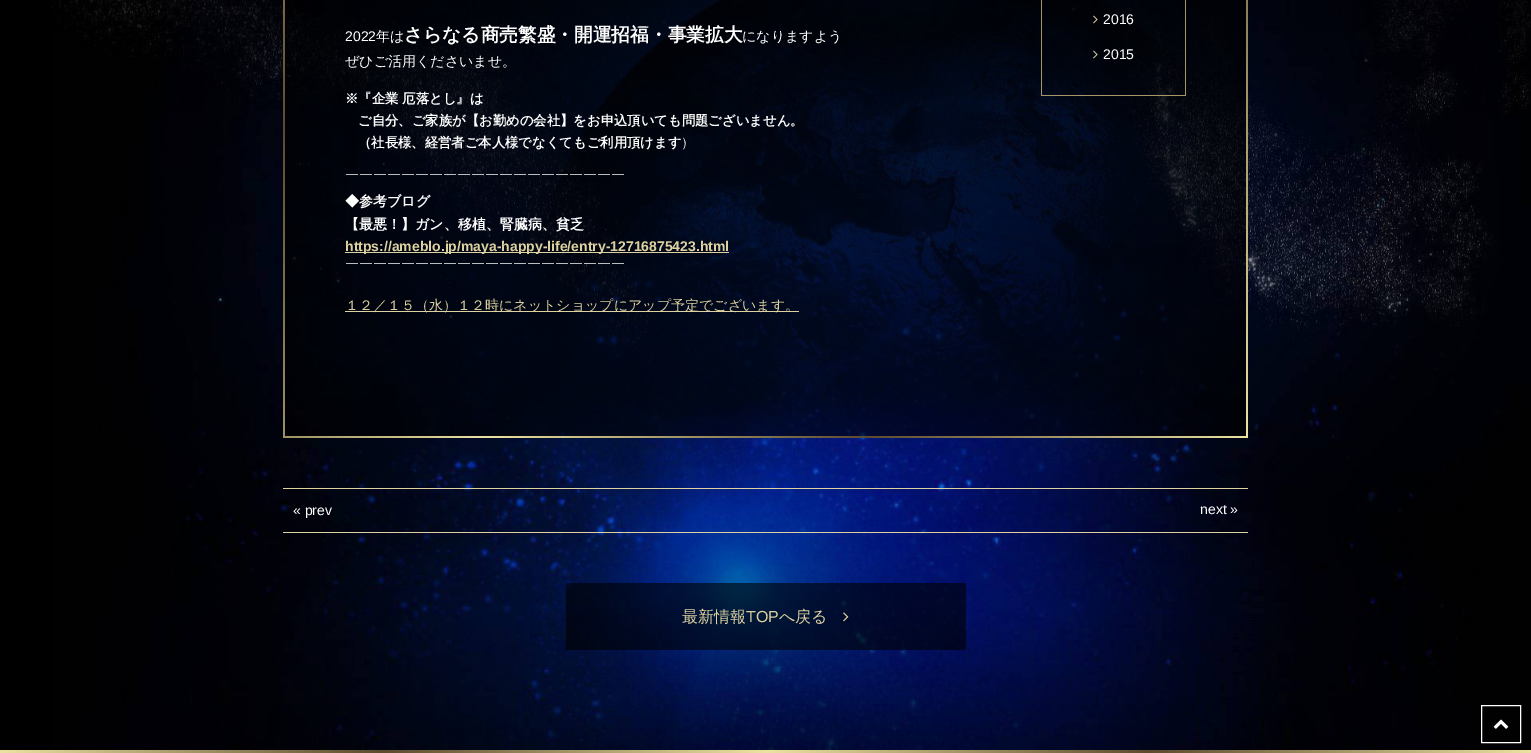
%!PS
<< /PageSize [1531 753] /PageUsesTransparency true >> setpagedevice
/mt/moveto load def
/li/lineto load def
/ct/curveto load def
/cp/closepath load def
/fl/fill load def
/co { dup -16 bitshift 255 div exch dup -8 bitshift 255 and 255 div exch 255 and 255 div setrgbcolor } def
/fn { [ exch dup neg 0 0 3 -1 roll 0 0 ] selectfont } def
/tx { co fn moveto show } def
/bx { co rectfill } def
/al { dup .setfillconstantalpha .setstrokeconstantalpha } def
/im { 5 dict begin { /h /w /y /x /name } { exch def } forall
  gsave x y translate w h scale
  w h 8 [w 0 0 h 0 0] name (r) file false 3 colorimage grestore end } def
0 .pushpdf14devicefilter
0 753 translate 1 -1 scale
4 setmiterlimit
0 0 1531 753 16#000000 bx
(media/1.raw) 51 0 1480 750 im
0.6 al
283 -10 mt 1248 -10 li 1248 428 li 1248 433.5 1243.5 438 1238 438 ct 293 438 li 287.5 438 283 433.5 283 428 ct cp fl
1 al
(media/2.raw) 283 0 965 438 im
345 252 384 1 16#DDD2A0 bx
345 311 454 1 16#DDD2A0 bx
1185 0 1 96 16#A59768 bx
1041 95 145 1 16#A59768 bx
1041 0 1 96 16#A59768 bx
(media/3.raw) 1093 15 5 9 im
(media/4.raw) 1093 50 5 9 im
283 488 965 1 16#DDD2A0 bx
283 532 965 1 16#DDD2A0 bx
0.6 al
566 583 400 67 16#000000 bx
1 al
(media/5.raw) 843 612 6 10 im
16#FFFFFF co
1481.5 705.5 39 37 rectstroke
(media/6.raw) 1493 719 16 10 im
(media/7.raw) 0 750 1531 3 im
(2022) 345 41 /LiberationSans-Regular 14 16#FFFFFF tx
(年は) 376 41 /WenQuanYiZenHei-Medium 14 16#FFFFFF tx
(さらなる商売繁盛・開運招福・事業拡大) 404 41 /WenQuanYiZenHei-Bold 18.7 16#FFFFFF tx
(になりますよう) 742 41 /WenQuanYiZenHei-Medium 14 16#FFFFFF tx
(ぜひご活用くださいませ。) 345 66 /WenQuanYiZenHei-Medium 14 16#FFFFFF tx
(※『企業 厄落とし』は) 345 103 /WenQuanYiZenHei-Bold 13.35 16#FFFFFF tx
(ご自分、ご家族が【お勤めの会社】をお申込頂いても問題ございません。) 358 125 /WenQuanYiZenHei-Bold 13.35 16#FFFFFF tx
(（社長様、経営者ご本人様でなくてもご利用頂けます) 358 147 /WenQuanYiZenHei-Bold 13.35 16#FFFFFF tx
(）) 681 147 /WenQuanYiZenHei-Medium 13.35 16#FFFFFF tx
(￣￣￣￣￣￣￣￣￣￣￣￣￣￣￣￣￣￣￣￣) 345 184 /WenQuanYiZenHei-Medium 14 16#FFFFFF tx
(◆参考ブログ) 345 206 /WenQuanYiZenHei-Bold 14 16#FFFFFF tx
(【最悪！】ガン、移植、腎臓病、貧乏) 345 229 /WenQuanYiZenHei-Bold 14 16#FFFFFF tx
(https://ameblo.jp/maya-happy-life/entry-12716875423.html) 345 251 /LiberationSans-Bold 14 16#DDD2A0 tx
(￣￣￣￣￣￣￣￣￣￣￣￣￣￣￣￣￣￣￣￣) 345 273 /WenQuanYiZenHei-Medium 14 16#FFFFFF tx
(１２／１５（水）１２時にネットショップにアップ予定でございます。) 345 310 /WenQuanYiZenHei-Medium 14 16#DDD2A0 tx
(2016) 1103 24 /LiberationSans-Regular 14 16#FFFFFF tx
(2015) 1103 59 /LiberationSans-Regular 14 16#FFFFFF tx
(« prev) 293 515 /LiberationSans-Regular 14 16#FFFFFF tx
(next ») 1200 514 /LiberationSans-Regular 14 16#FFFFFF tx
(最新情報) 682 622 /WenQuanYiZenHei-Medium 16 16#DDD2A0 tx
(TOP) 746 622 /LiberationSans-Regular 16 16#DDD2A0 tx
(へ戻る) 779 622 /WenQuanYiZenHei-Medium 16 16#DDD2A0 tx
.poppdf14devicefilter showpage
